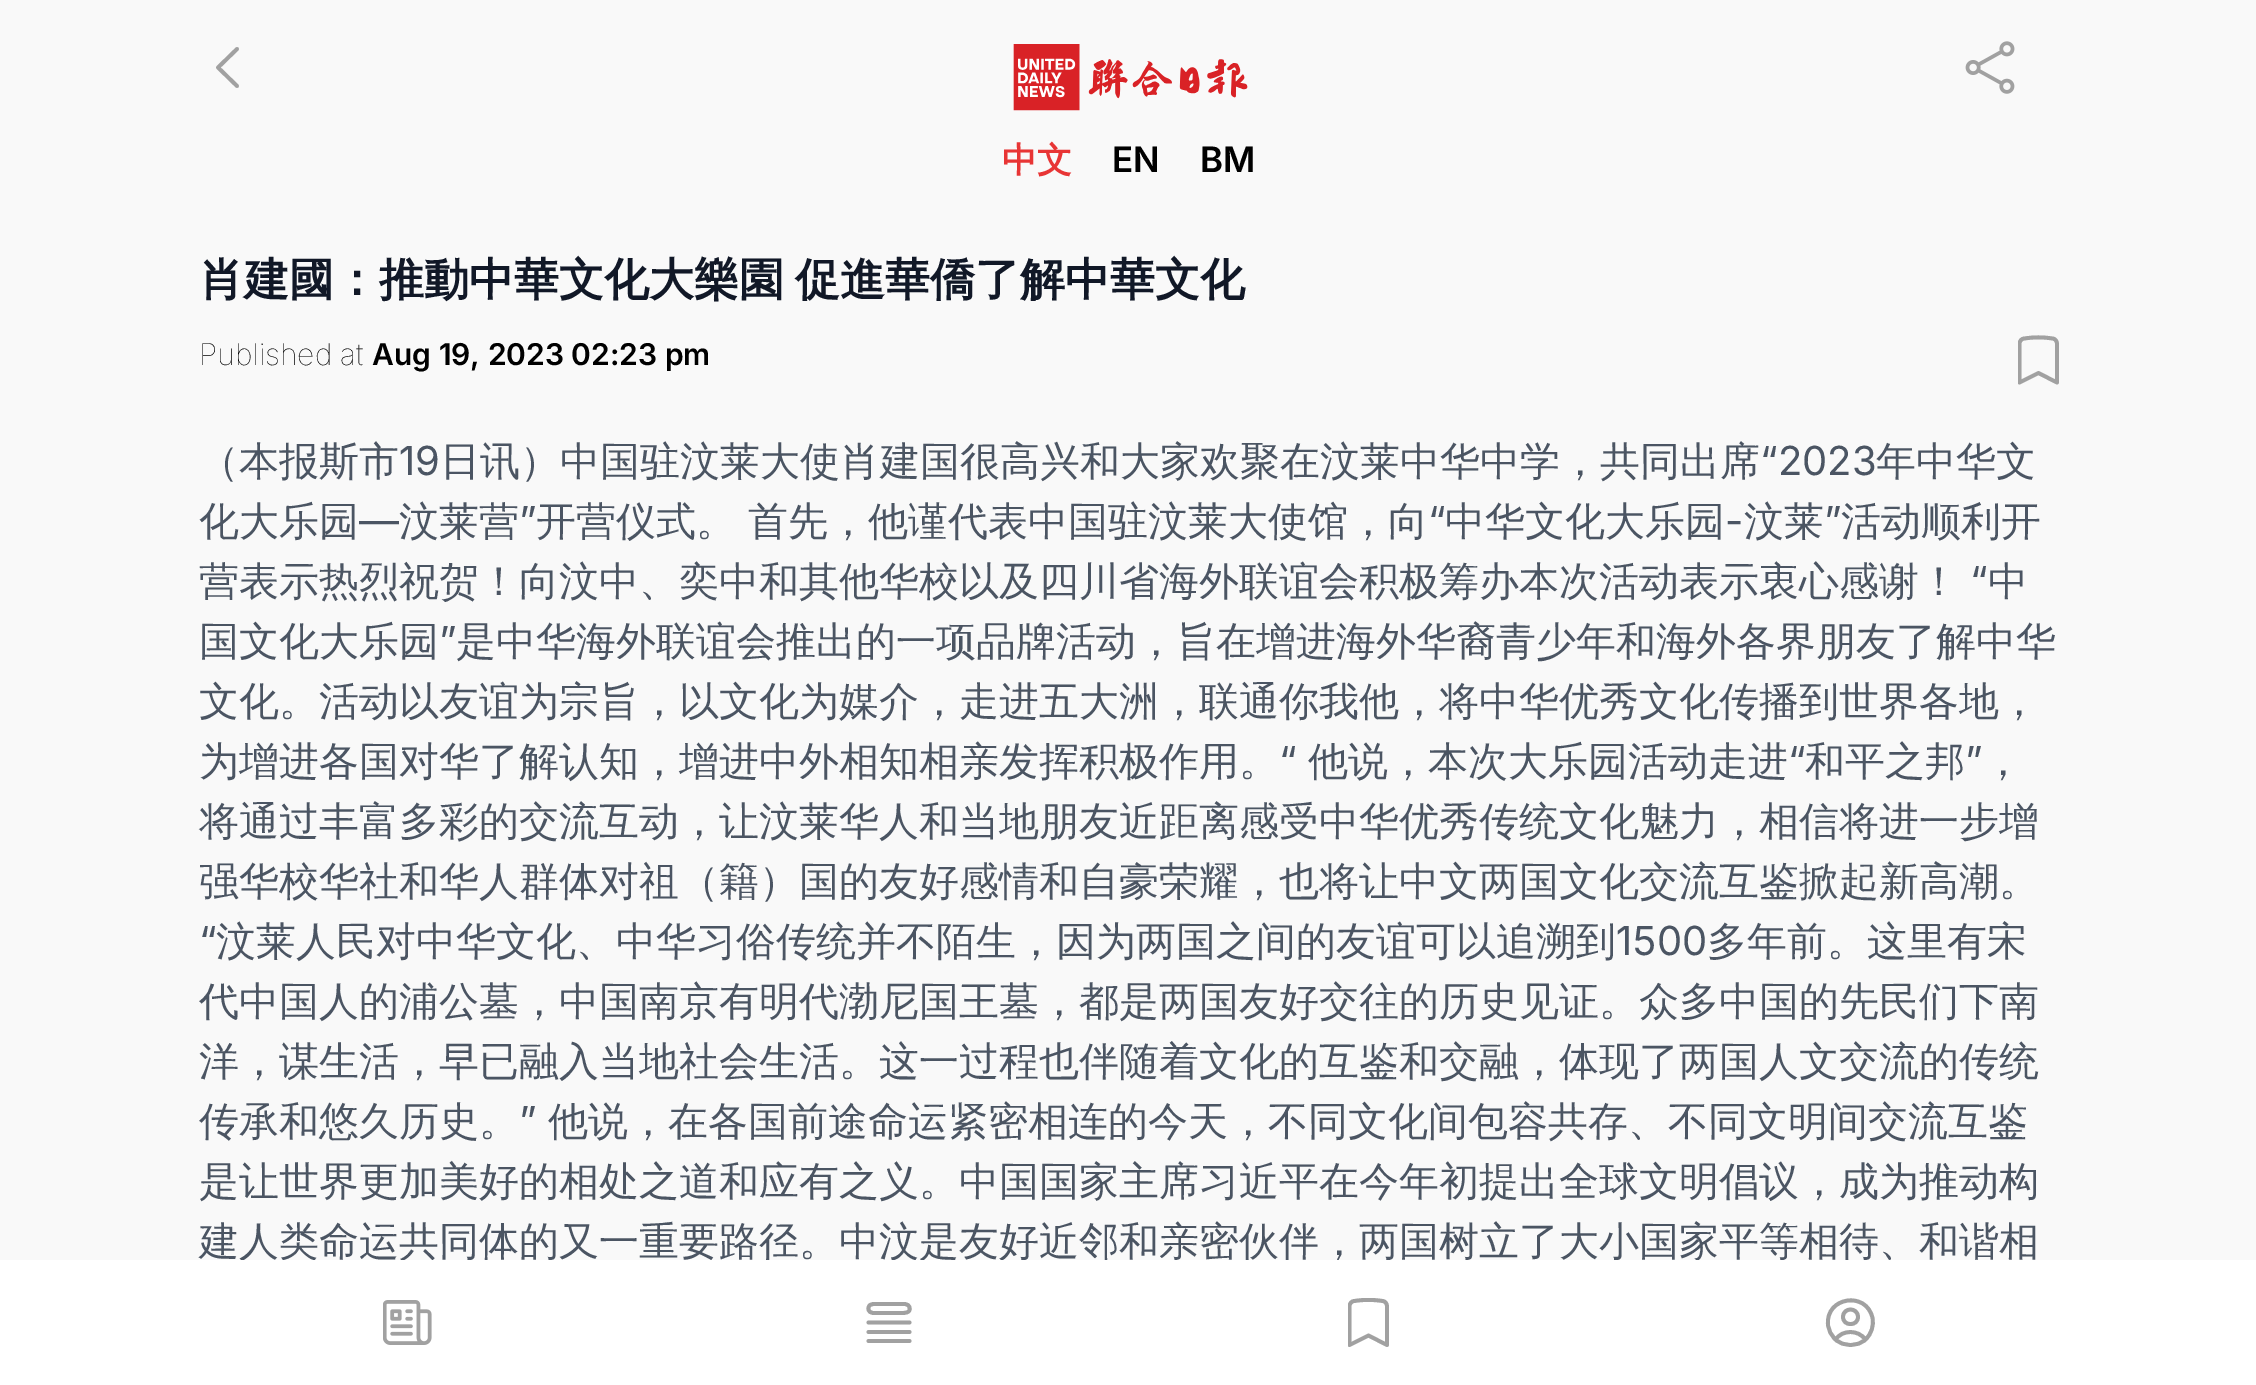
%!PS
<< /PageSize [2256 1385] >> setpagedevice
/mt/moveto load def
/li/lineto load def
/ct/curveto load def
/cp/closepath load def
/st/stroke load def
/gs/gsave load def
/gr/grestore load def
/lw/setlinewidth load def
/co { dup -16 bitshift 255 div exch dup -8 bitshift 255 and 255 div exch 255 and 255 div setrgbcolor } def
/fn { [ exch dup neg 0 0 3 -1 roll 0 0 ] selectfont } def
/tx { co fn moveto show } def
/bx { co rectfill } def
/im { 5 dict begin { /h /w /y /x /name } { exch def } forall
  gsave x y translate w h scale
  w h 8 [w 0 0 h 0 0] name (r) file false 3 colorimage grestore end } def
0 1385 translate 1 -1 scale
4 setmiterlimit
0 0 2256 1385 16#F9F9F9 bx
16#A1A1A1 co
3.8 lw
1 setlinecap
1 setlinejoin
237 86 mt 218 67.5 li 237 49 li st
(media/1.raw) 1013 44 235 67 im
(media/2.raw) 1965 41 50 53 im
gs
2018 335 42 50 rectclip
2052.5 338.5 mt 2055 338.5 2057 341 2057 344 ct 2057 382.5 li 2038.5 373 li 2019.5 382.5 li 2019.5 344 li 2019.5 341 2021.5 338.5 2024.5 338.5 ct 2033.5 337 2043 337 2052.5 338.5 ct cp st
gr
(中文) 1002 172 /WenQuanYiZenHei-Bold 35 16#E83535 tx
(EN) 1112 172 /Inter-SemiBold 35 16#000000 tx
(BM) 1200 172 /Inter-SemiBold 35 16#000000 tx
/WenQuanYiZenHei-Bold 45 fn
16#111827 co
199 295 mt -2 0 32 (肖建國：推動中華文化大樂園 促進華僑了解中華文化) widthshow
(Published at) 199 365 /Inter-Thin 30 16#000000 tx
(Aug 19, 2023 02:23 pm) 372 365 /Inter-SemiBold 30 16#000000 tx
(（本报斯市) 199 475 /WenQuanYiZenHei-Medium 40 16#4B5563 tx
(19) 399 475 /Inter-Regular 40 16#4B5563 tx
(日讯）中国驻汶莱大使肖建国很高兴和大家欢聚在汶莱中华中学，共同出席) 440 475 /WenQuanYiZenHei-Medium 40 16#4B5563 tx
(“2023) 1760 475 /Inter-Regular 40 16#4B5563 tx
(年中华文) 1876 475 /WenQuanYiZenHei-Medium 40 16#4B5563 tx
(化大乐园) 199 535 /WenQuanYiZenHei-Medium 40 16#4B5563 tx
(汶莱营) 399 535 /WenQuanYiZenHei-Medium 40 16#4B5563 tx
(”) 519 535 /Inter-Regular 40 16#4B5563 tx
(开营仪式。) 536 535 /WenQuanYiZenHei-Medium 40 16#4B5563 tx
(首先，他谨代表中国驻汶莱大使馆，向) 748 535 /WenQuanYiZenHei-Medium 40 16#4B5563 tx
(“) 1428 535 /Inter-Regular 40 16#4B5563 tx
(中华文化大乐园) 1445 535 /WenQuanYiZenHei-Medium 40 16#4B5563 tx
(汶莱) 1744 535 /WenQuanYiZenHei-Medium 40 16#4B5563 tx
(”) 1824 535 /Inter-Regular 40 16#4B5563 tx
(活动顺利开) 1841 535 /WenQuanYiZenHei-Medium 40 16#4B5563 tx
(—) 359 535 /Inter-Regular 40 16#4B5563 tx
(-) 1725 535 /Inter-Regular 40 16#4B5563 tx
(营表示热烈祝贺！向汶中、奕中和其他华校以及四川省海外联谊会积极筹办本次活动表示衷心感谢！) 199 595 /WenQuanYiZenHei-Medium 40 16#4B5563 tx
(“) 1970 595 /Inter-Regular 40 16#4B5563 tx
(中) 1988 595 /WenQuanYiZenHei-Medium 40 16#4B5563 tx
(国文化大乐园) 199 655 /WenQuanYiZenHei-Medium 40 16#4B5563 tx
(”) 439 655 /Inter-Regular 40 16#4B5563 tx
(是中华海外联谊会推出的一项品牌活动，旨在增进海外华裔青少年和海外各界朋友了解中华) 456 655 /WenQuanYiZenHei-Medium 40 16#4B5563 tx
(文化。活动以友谊为宗旨，以文化为媒介，走进五大洲，联通你我他，将中华优秀文化传播到世界各地，) 199 715 /WenQuanYiZenHei-Medium 40 16#4B5563 tx
(为增进各国对华了解认知，增进中外相知相亲发挥积极作用。) 199 775 /WenQuanYiZenHei-Medium 40 16#4B5563 tx
(“) 1279 775 /Inter-Regular 40 16#4B5563 tx
(他说，本次大乐园活动走进) 1308 775 /WenQuanYiZenHei-Medium 40 16#4B5563 tx
(“) 1788 775 /Inter-Regular 40 16#4B5563 tx
(和平之邦) 1805 775 /WenQuanYiZenHei-Medium 40 16#4B5563 tx
(”) 1965 775 /Inter-Regular 40 16#4B5563 tx
(，) 1983 775 /WenQuanYiZenHei-Medium 40 16#4B5563 tx
(将通过丰富多彩的交流互动，让汶莱华人和当地朋友近距离感受中华优秀传统文化魅力，相信将进一步增) 199 835 /WenQuanYiZenHei-Medium 40 16#4B5563 tx
(强华校华社和华人群体对祖（籍）国的友好感情和自豪荣耀，也将让中文两国文化交流互鉴掀起新高潮。) 199 895 /WenQuanYiZenHei-Medium 40 16#4B5563 tx
(“) 199 955 /Inter-Regular 40 16#4B5563 tx
(汶莱人民对中华文化、中华习俗传统并不陌生，因为两国之间的友谊可以追溯到) 216 955 /WenQuanYiZenHei-Medium 40 16#4B5563 tx
(1500) 1616 955 /Inter-Regular 40 16#4B5563 tx
(多年前。这里有宋) 1707 955 /WenQuanYiZenHei-Medium 40 16#4B5563 tx
(代中国人的浦公墓，中国南京有明代渤尼国王墓，都是两国友好交往的历史见证。众多中国的先民们下南) 199 1015 /WenQuanYiZenHei-Medium 40 16#4B5563 tx
(洋，谋生活，早已融入当地社会生活。这一过程也伴随着文化的互鉴和交融，体现了两国人文交流的传统) 199 1075 /WenQuanYiZenHei-Medium 40 16#4B5563 tx
(传承和悠久历史。) 199 1135 /WenQuanYiZenHei-Medium 40 16#4B5563 tx
(”) 519 1135 /Inter-Regular 40 16#4B5563 tx
(他说，在各国前途命运紧密相连的今天，不同文化间包容共存、不同文明间交流互鉴) 548 1135 /WenQuanYiZenHei-Medium 40 16#4B5563 tx
(是让世界更加美好的相处之道和应有之义。中国国家主席习近平在今年初提出全球文明倡议，成为推动构) 199 1195 /WenQuanYiZenHei-Medium 40 16#4B5563 tx
(建人类命运共同体的又一重要路径。中汶是友好近邻和亲密伙伴，两国树立了大小国家平等相待、和谐相) 199 1255 /WenQuanYiZenHei-Medium 40 16#4B5563 tx
0 1260 2256 125 16#FFFFFF bx
(media/3.raw) 383 1300 49 45 im
16#A1A1A1 co
868.5 1322.5 mt 909.5 1322.5 li 868.5 1332 mt 909.5 1332 li 868.5 1341 mt 909.5 1341 li 873 1304 mt 899.5 1304 li 903 1304 908.5 1303 909.5 1307.5 ct 911 1313.5 903.5 1313 899.5 1313 ct 878.5 1313 li 875 1313 869.5 1314 868.5 1309.5 ct 868 1307.5 869 1306 870 1305 ct cp st
gs
1348 1298 42 50 rectclip
1382.5 1301 mt 1385 1301 1387 1303.5 1387 1306.5 ct 1387 1345 li 1368.5 1335.5 li 1349.5 1345 li 1349.5 1306.5 li 1349.5 1303.5 1351.5 1301 1354.5 1301 ct 1363.5 1299.5 1373 1299.5 1382.5 1301 ct cp st
gr
1865.5 1339.5 mt 1858 1329.5 1842.5 1329.5 1835.5 1339.5 ct 1865.5 1339.5 mt 1871.5 1334 1874 1325.5 1872.5 1318 ct 1866.5 1290.5 1825.5 1297 1828 1324.5 ct 1828.5 1330 1831 1335.5 1835.5 1339.5 ct 1865.5 1339.5 mt 1857 1347 1844 1347 1835.5 1339.5 ct 1858 1317 mt 1858 1326.5 1843 1326.5 1843 1317 ct 1843 1307 1858 1307 1858 1317 ct cp st
showpage
